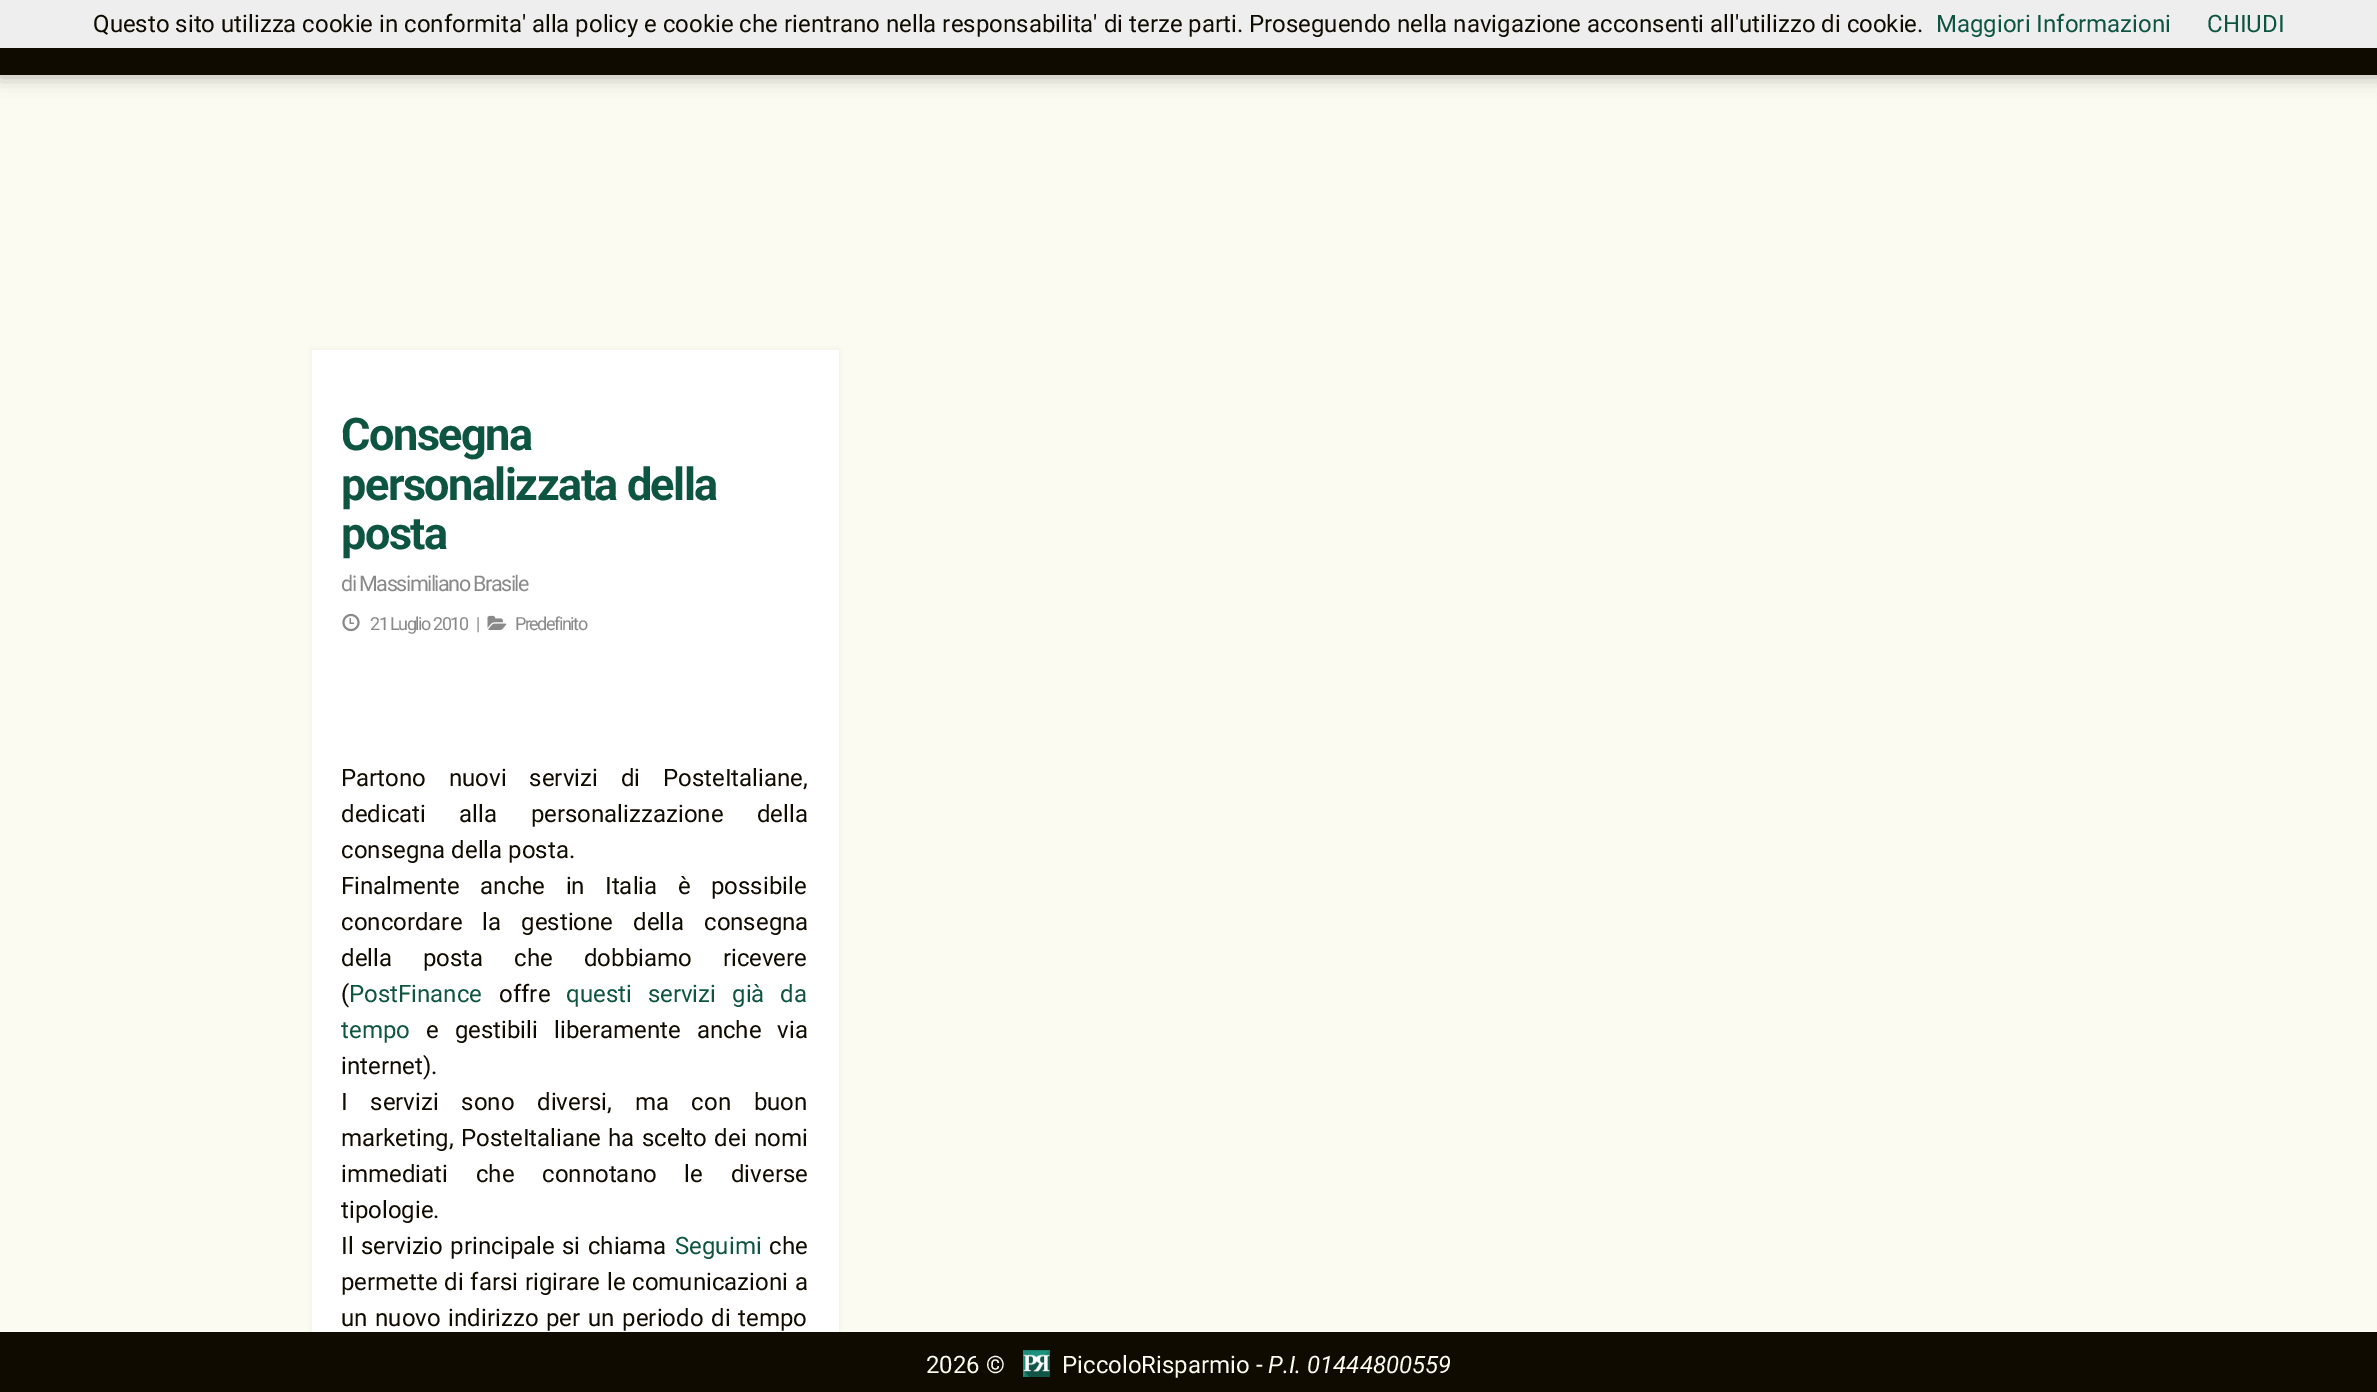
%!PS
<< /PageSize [2377 1392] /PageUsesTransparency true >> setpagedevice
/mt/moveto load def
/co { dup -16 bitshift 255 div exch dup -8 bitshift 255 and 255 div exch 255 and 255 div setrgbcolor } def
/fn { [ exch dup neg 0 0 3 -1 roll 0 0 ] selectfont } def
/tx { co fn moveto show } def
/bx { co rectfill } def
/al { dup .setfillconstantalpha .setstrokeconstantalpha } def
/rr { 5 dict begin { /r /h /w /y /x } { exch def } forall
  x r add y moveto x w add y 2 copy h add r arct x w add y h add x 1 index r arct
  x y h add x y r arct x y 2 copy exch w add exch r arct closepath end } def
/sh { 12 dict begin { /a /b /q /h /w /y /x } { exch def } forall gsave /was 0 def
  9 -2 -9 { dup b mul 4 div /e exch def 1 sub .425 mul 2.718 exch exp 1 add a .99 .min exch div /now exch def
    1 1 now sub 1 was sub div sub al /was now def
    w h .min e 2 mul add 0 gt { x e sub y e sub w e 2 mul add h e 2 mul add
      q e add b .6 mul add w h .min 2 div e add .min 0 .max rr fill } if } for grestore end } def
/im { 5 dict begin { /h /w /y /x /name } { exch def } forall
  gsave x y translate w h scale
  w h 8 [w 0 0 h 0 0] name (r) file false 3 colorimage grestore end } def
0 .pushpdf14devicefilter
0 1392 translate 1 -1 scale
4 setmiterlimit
0 0 2377 1392 16#FBFBF2 bx
16#100B00 co
0 2 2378 75 0 9 .3 sh
0 48 2377 27 16#100B00 bx
0 0 2377 48 16#EEEEEE bx
16#100B00 co
312 350 527 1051 0 3 .05 sh
312 350 527 982 16#FFFFFF bx
(media/1.raw) 342 613 18 19 im
(media/2.raw) 487 615 20 15 im
0 1332 2377 60 16#100B00 bx
(media/3.raw) 1023 1350 27 27 im
(Questo sito utilizza cookie in conformita' alla policy e cookie che rientrano nella responsabilita' di terze parti. Proseguendo nella navigazione acconsenti all'utilizzo di cookie.) 93 32 /Roboto-Regular 24 16#100B00 tx
(Maggiori Informazioni) 1936 32 /Roboto-Regular 24 16#0D5441 tx
(CHIUDI) 2207 32 /Roboto-Regular 24 16#0D5441 tx
/Roboto-Bold 45 fn
341 450 mt -1.5 0 (Consegna) ashow
341 500 mt -1.5 0 (personalizzata della) ashow
341 549 mt -1.5 0 (posta) ashow
/Roboto-Regular 21.5 fn
16#898989 co
341 591 mt -1.5 0 (di Massimiliano Brasile) ashow
/Roboto-Regular 18 fn
370 630 mt -1.5 0 (21 Luglio 2010) ashow
476 630 mt -1.5 0 (|) ashow
515 630 mt -1.5 0 (Predefinito) ashow
/Roboto-Regular 24 fn
16#100B00 co
341 786 mt 17 0 32 (Partono nuovi servizi di PosteItaliane,) widthshow
341 822 mt 27.5 0 32 (dedicati alla personalizzazione della) widthshow
(consegna della posta.) 341 858 /Roboto-Regular 24 16#100B00 tx
341 894 mt 14.5 0 32 (Finalmente anche in Italia è possibile) widthshow
341 930 mt 14 0 32 (concordare la gestione della consegna) widthshow
341 966 mt 25 0 32 (della posta che dobbiamo ricevere) widthshow
(\() 341 1002 /Roboto-Regular 24 16#100B00 tx
(PostFinance) 349 1002 /Roboto-Regular 24 16#0D5441 tx
(offre) 499 1002 /Roboto-Regular 24 16#100B00 tx
16#0D5441 co
566 1002 mt 10 0 32 (questi servizi già da) widthshow
(tempo) 341 1038 /Roboto-Regular 24 16#0D5441 tx
16#100B00 co
426 1038 mt 10 0 32 (e gestibili liberamente anche via) widthshow
(internet\).) 341 1074 /Roboto-Regular 24 16#100B00 tx
341 1110 mt 16.75 0 32 (I servizi sono diversi, ma con buon) widthshow
341 1146 mt 1.5 0 32 (marketing, PosteItaliane ha scelto dei nomi) widthshow
341 1182 mt 22 0 32 (immediati che connotano le diverse) widthshow
(tipologie.) 341 1218 /Roboto-Regular 24 16#100B00 tx
341 1254 mt 1.5 0 32 (Il servizio principale si chiama) widthshow
(Seguimi) 675 1254 /Roboto-Regular 24 16#0D5441 tx
(che) 769 1254 /Roboto-Regular 24 16#100B00 tx
341 1290 mt .75 0 32 (permette di farsi rigirare le comunicazioni a) widthshow
341 1326 mt 1.75 0 32 (un nuovo indirizzo per un periodo di tempo) widthshow
(2026 ©) 926 1373 /Roboto-Regular 24 16#FBFBF2 tx
(PiccoloRisparmio -) 1062 1373 /Roboto-Regular 24 16#FBFBF2 tx
(P.I. 01444800559) 1268 1373 /Roboto-Italic 24 16#FBFBF2 tx
.poppdf14devicefilter showpage
